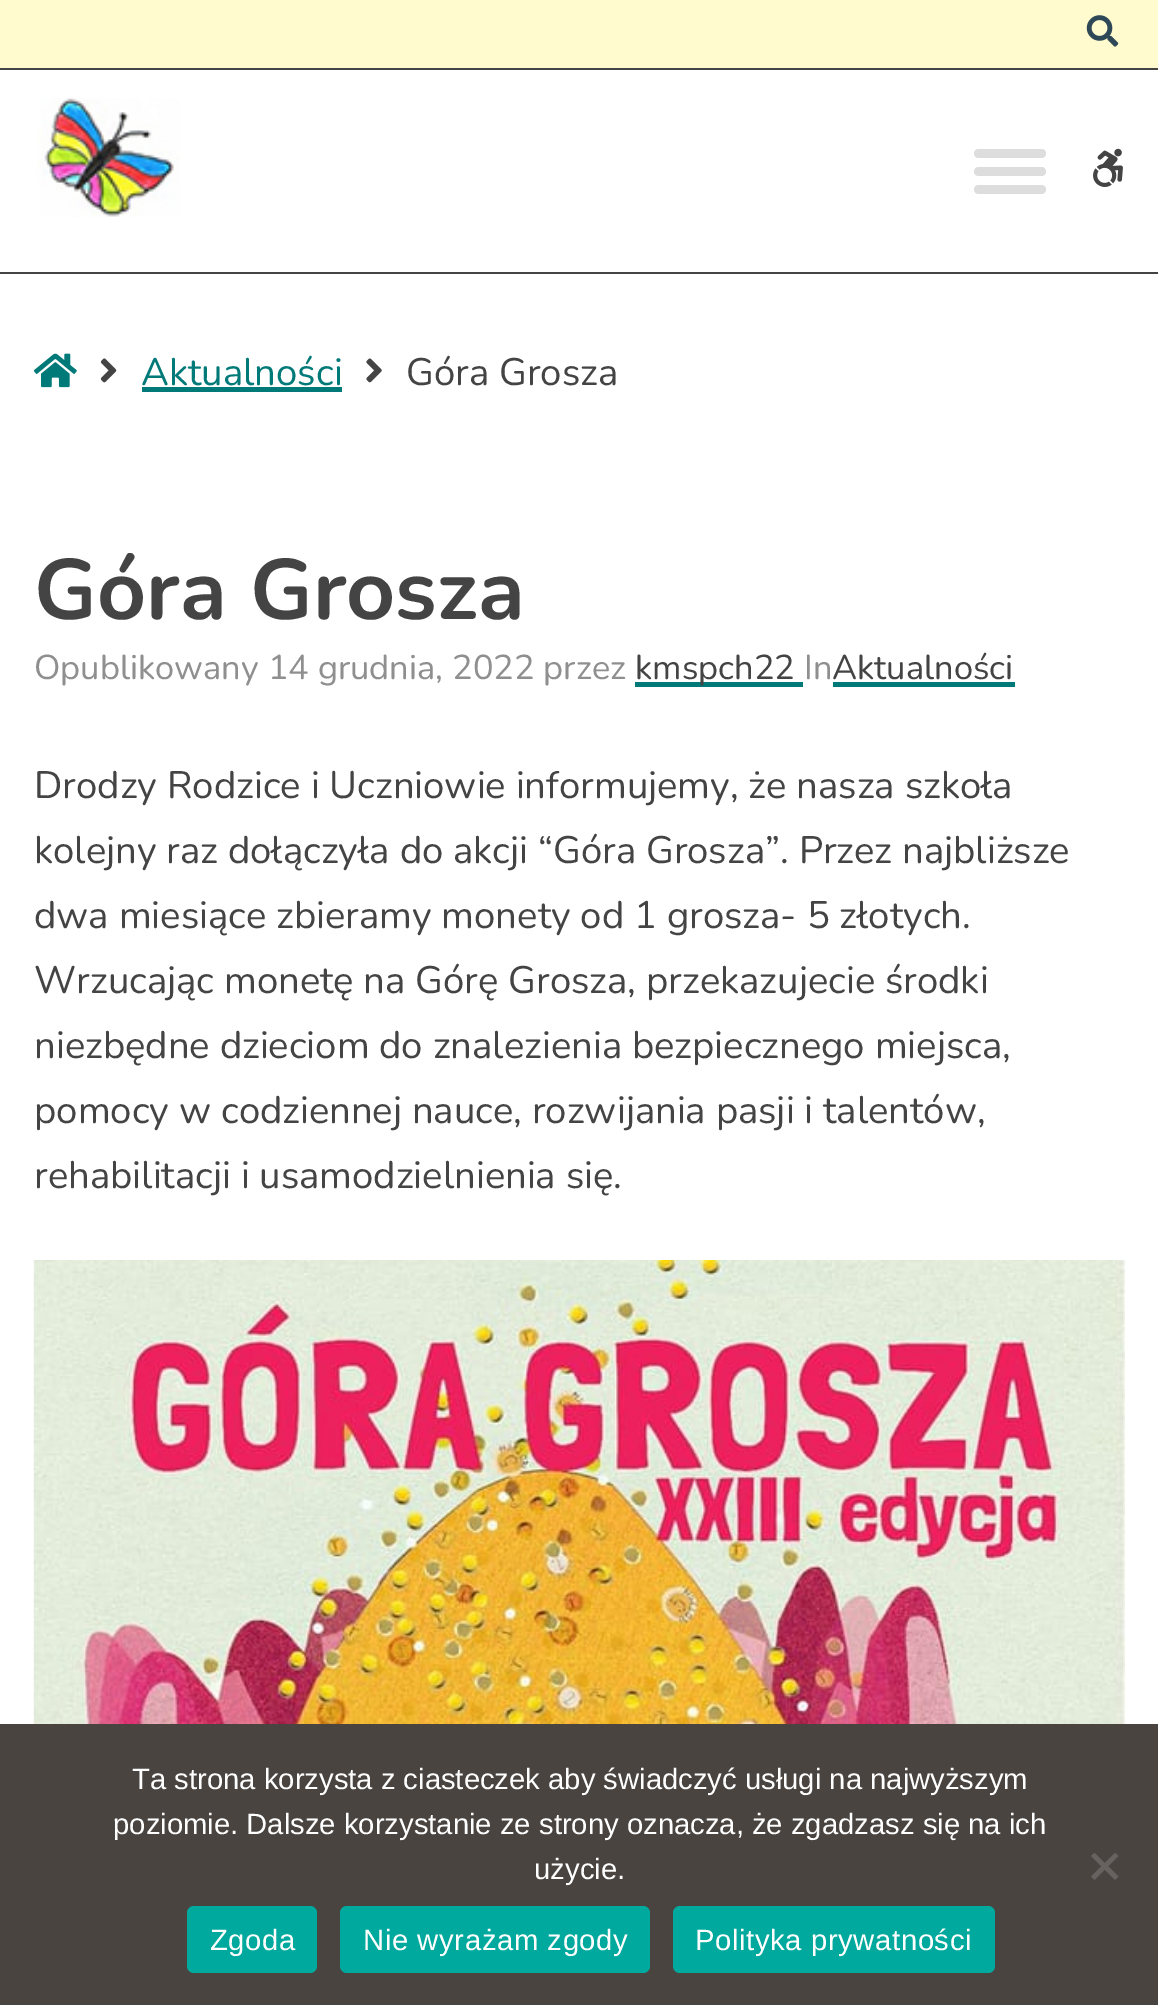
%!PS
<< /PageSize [1158 2005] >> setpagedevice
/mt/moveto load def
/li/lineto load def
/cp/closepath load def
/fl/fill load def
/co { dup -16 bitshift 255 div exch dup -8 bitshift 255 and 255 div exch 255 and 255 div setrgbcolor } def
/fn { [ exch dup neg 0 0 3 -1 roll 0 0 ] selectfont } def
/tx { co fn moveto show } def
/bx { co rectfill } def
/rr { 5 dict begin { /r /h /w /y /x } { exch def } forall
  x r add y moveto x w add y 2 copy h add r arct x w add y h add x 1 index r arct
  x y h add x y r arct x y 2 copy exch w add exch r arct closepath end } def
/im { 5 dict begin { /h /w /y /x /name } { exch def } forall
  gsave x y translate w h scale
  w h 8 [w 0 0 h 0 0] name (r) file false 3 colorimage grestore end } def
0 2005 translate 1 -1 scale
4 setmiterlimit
0 0 1158 2005 16#FFFFFF bx
0 272 1158 2 16#444444 bx
0 0 1158 68 16#FFFBCE bx
0 68 1158 2 16#444444 bx
(media/1.raw) 1086 15 33 32 im
(media/2.raw) 37 98 143 119 im
16#DDDDDD co
974 149 72 9 4.5 rr fl
974 167 72 9 4.5 rr fl
974 185 72 9 4.5 rr fl
(media/3.raw) 1093 148 30 39 im
(media/4.raw) 33 353 44 35 im
(media/5.raw) 100 358 17 25 im
142 387 200 5 16#007A78 bx
(media/6.raw) 366 358 16 25 im
635 682 168 5 16#007A78 bx
833 682 182 5 16#007A78 bx
(media/7.raw) 33 1260 1092 464 im
0 1724 1158 281 16#494440 bx
16#656260 co
1115 1853 mt 1118.5 1856 li 1094.5 1880 li 1091 1876.5 li cp fl
1091 1856 mt 1094.5 1853 li 1118.5 1876.5 li 1115 1880 li cp fl
16#00A99D co
187 1906 130 67 7 rr fl
340 1906 310 67 7 rr fl
673 1906 322 67 7 rr fl
(Aktualności) 141 385 /Nunito-Regular 38.25 16#007A78 tx
(Góra Grosza) 406 385 /Nunito-Regular 38.25 16#444444 tx
(Góra Grosza) 34 619 /Nunito-Bold 85.5 16#444444 tx
(Opublikowany 14 grudnia, 2022 przez) 34 679 /Nunito-Regular 34.4 16#8F8F8F tx
(kmspch22) 635 679 /Nunito-Regular 34.4 16#444444 tx
(In) 804 679 /Nunito-Regular 34.4 16#8F8F8F tx
(Aktualności) 832 679 /Nunito-Regular 34.4 16#444444 tx
(Drodzy Rodzice i Uczniowie informujemy, że nasza szkoła) 34 798 /Nunito-Regular 38.25 16#444444 tx
(kolejny raz dołączyła do akcji “Góra Grosza”. Przez najbliższe) 34 863 /Nunito-Regular 38.25 16#444444 tx
(dwa miesiące zbieramy monety od 1 grosza- 5 złotych.) 34 928 /Nunito-Regular 38.25 16#444444 tx
(Wrzucając monetę na Górę Grosza, przekazujecie środki) 34 993 /Nunito-Regular 38.25 16#444444 tx
(niezbędne dzieciom do znalezienia bezpiecznego miejsca,) 34 1058 /Nunito-Regular 38.25 16#444444 tx
(pomocy w codziennej nauce, rozwijania pasji i talentów,) 34 1123 /Nunito-Regular 38.25 16#444444 tx
(rehabilitacji i usamodzielnienia się.) 34 1188 /Nunito-Regular 38.25 16#444444 tx
(Ta strona korzysta z ciasteczek aby świadczyć usługi na najwyższym) 132 1789 /LiberationSans-Regular 29.25 16#FFFFFF tx
(poziomie. Dalsze korzystanie ze strony oznacza, że zgadzasz się na ich) 113 1834 /LiberationSans-Regular 29.25 16#FFFFFF tx
(użycie.) 534 1879 /LiberationSans-Regular 29.25 16#FFFFFF tx
210 1950 mt .6 0 (Zgoda) ashow
363 1950 mt .6 0 (Nie wyrażam zgody) ashow
695 1950 mt .6 0 (Polityka prywatności) ashow
showpage
